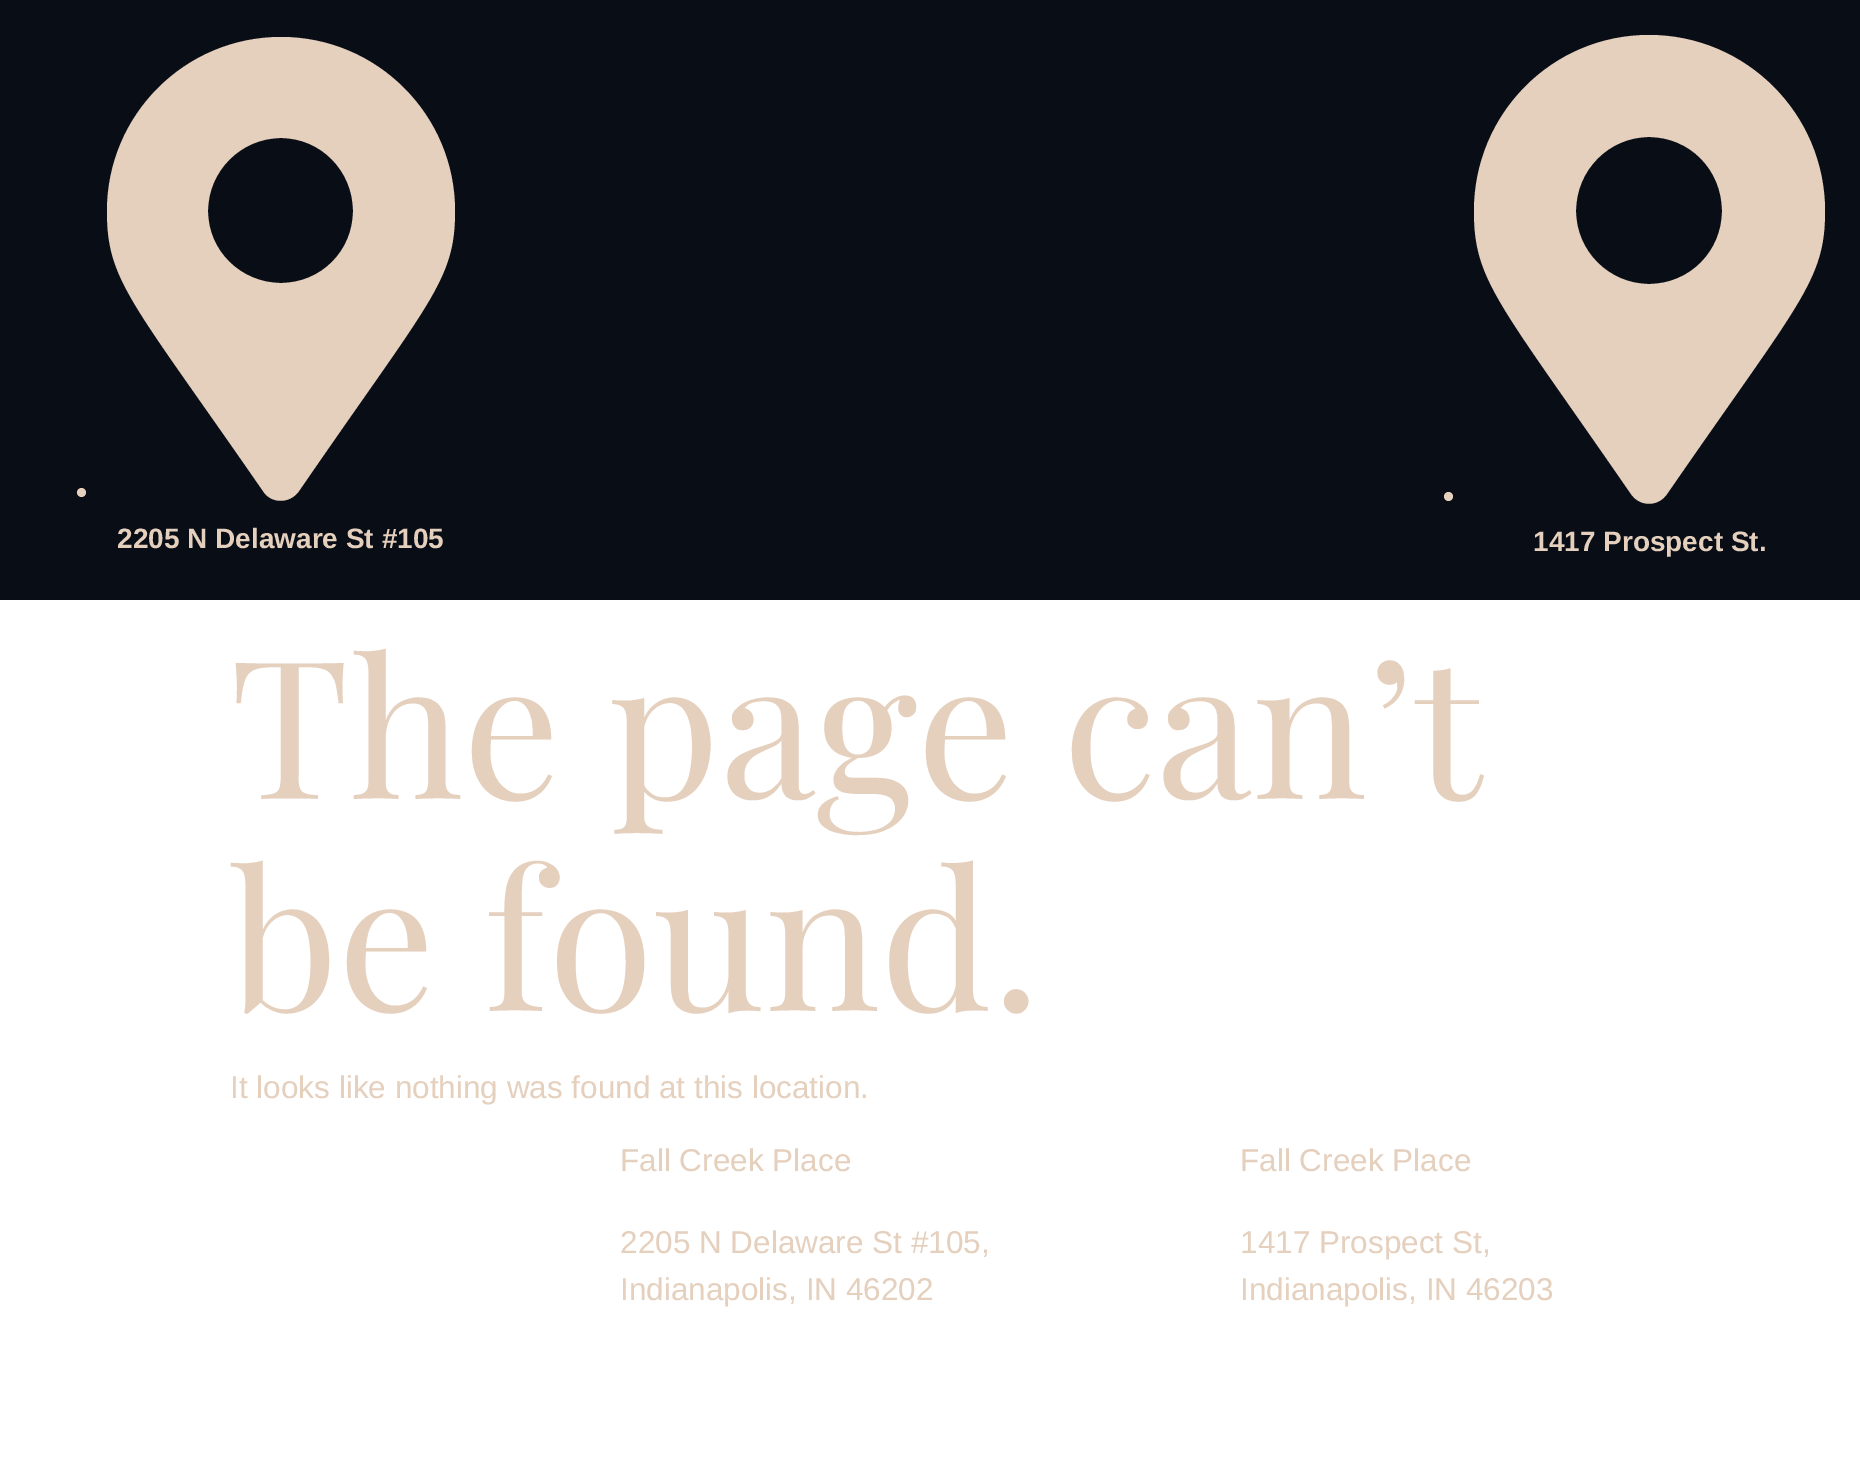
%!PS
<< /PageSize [1860 1480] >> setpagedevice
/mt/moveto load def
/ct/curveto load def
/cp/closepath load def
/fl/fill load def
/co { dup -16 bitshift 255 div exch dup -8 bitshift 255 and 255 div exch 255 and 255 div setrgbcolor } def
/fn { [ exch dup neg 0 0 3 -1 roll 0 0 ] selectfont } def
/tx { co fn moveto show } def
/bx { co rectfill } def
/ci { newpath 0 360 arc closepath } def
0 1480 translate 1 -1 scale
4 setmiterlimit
0 0 1860 1480 16#FFFFFF bx
0 0 1860 600 16#080D16 bx
16#E5CFBD co
81.5 492.5 4.5 ci fl
263 491 mt 131 300 107 281 107 211 ct 107 115 185 37 281 37 ct 377 37 455 115 455 211 ct 455 281 430 300 299 491 ct 290 504 271 504 263 491 ct cp 281 283 mt 321 283 353 251 353 211 ct 353 171 321 138 281 138 ct 241 138 208 171 208 211 ct 208 251 241 283 281 283 ct cp fl
1448.5 496.5 4.5 ci fl
1631 494 mt 1498 301 1474 281 1474 211 ct 1474 114 1552 35 1649 35 ct 1746 35 1825 114 1825 211 ct 1825 281 1800 301 1667 494 ct 1658 507 1640 507 1631 494 ct cp 1649 284 mt 1690 284 1722 251 1722 211 ct 1722 170 1690 137 1649 137 ct 1609 137 1576 170 1576 211 ct 1576 251 1609 284 1649 284 ct cp fl
(2205 N Delaware St #105) 117 548 /LiberationSans-Bold 28 16#E5CFBD tx
(1417 Prospect St.) 1533 551 /LiberationSans-Bold 28 16#E5CFBD tx
(The page can’t) 230 799 /PlayfairDisplay-Regular 192.5 16#E5CFBD tx
(be found.) 230 1011 /PlayfairDisplay-Regular 192.5 16#E5CFBD tx
(It looks like nothing was found at this location.) 230 1098 /LiberationSans-Regular 31.5 16#E5CFBD tx
(Fall Creek Place) 620 1171 /LiberationSans-Regular 31.5 16#E5CFBD tx
(2205 N Delaware St #105,) 620 1253 /LiberationSans-Regular 31.5 16#E5CFBD tx
(Indianapolis, IN 46202) 620 1300 /LiberationSans-Regular 31.5 16#E5CFBD tx
(Fall Creek Place) 1240 1171 /LiberationSans-Regular 31.5 16#E5CFBD tx
(1417 Prospect St,) 1240 1253 /LiberationSans-Regular 31.5 16#E5CFBD tx
(Indianapolis, IN 46203) 1240 1300 /LiberationSans-Regular 31.5 16#E5CFBD tx
showpage
